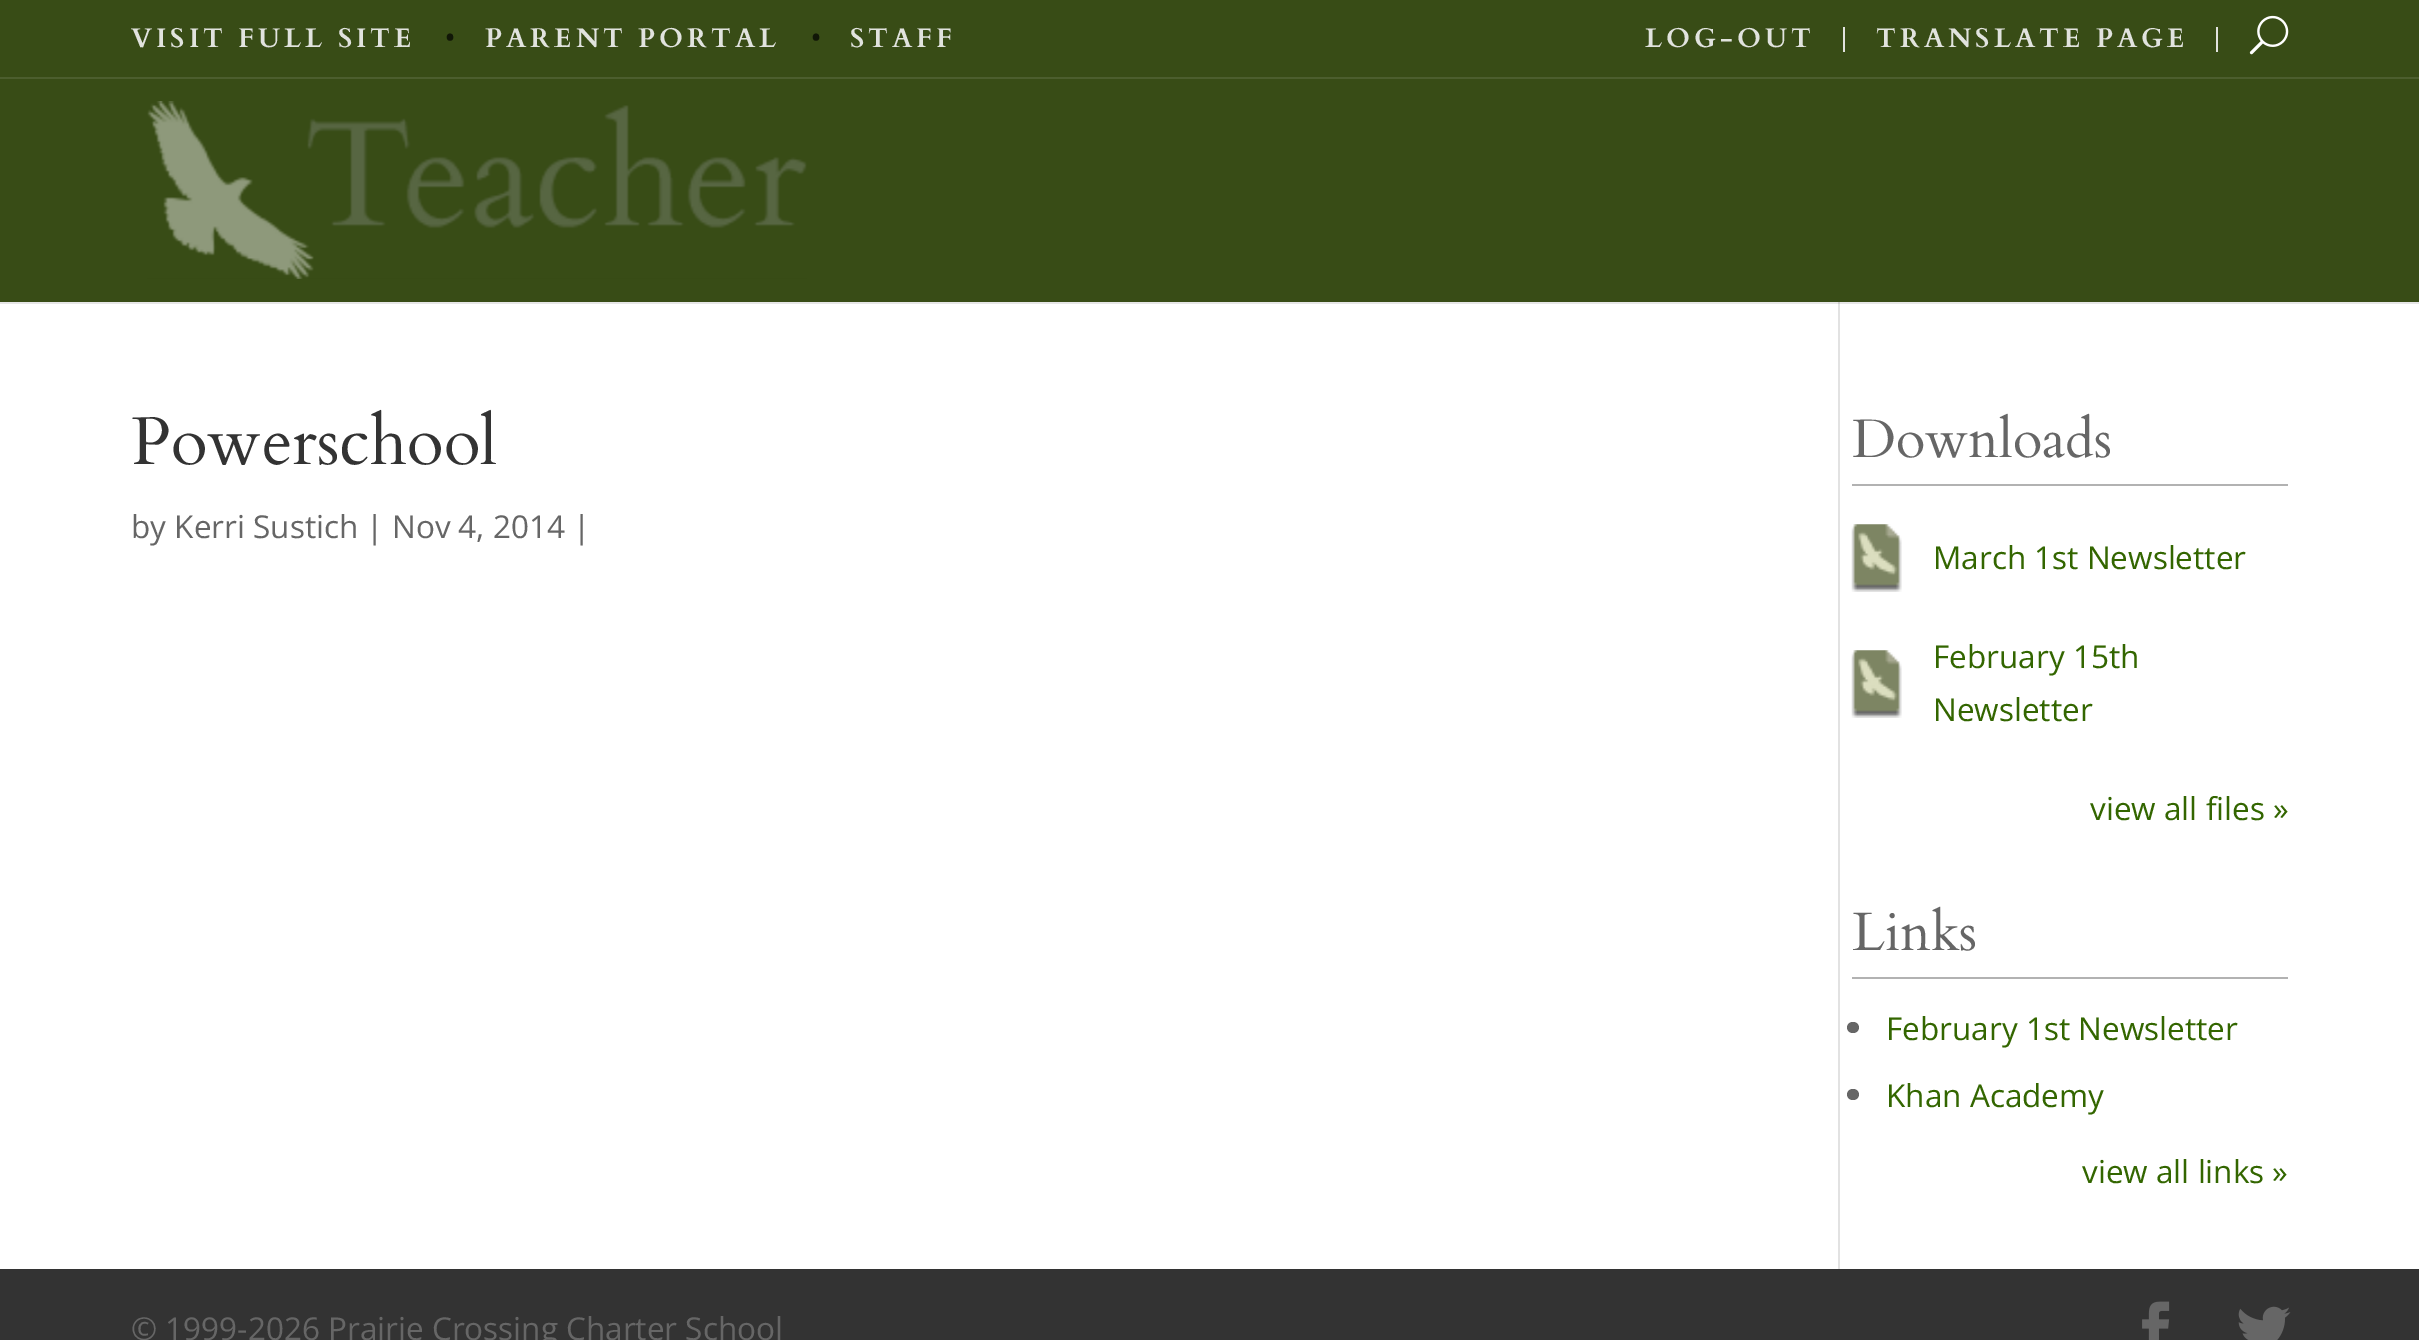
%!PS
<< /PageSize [2419 1340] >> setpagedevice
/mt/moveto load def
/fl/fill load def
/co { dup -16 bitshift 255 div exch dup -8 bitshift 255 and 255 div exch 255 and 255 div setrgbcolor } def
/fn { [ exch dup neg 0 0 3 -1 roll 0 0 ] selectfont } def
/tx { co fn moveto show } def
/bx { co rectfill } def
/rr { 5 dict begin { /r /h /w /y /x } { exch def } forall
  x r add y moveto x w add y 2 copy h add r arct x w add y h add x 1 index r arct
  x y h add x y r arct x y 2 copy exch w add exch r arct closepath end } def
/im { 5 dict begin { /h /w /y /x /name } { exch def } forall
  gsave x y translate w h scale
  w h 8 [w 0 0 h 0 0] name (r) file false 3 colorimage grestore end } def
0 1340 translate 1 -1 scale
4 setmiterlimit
0 0 2419 1340 16#FFFFFF bx
0 302 2419 2 16#E6E6E6 bx
0 0 2419 77 16#384C16 bx
1843 27 2 25 16#E1E3DE bx
2216 27 2 25 16#E1E3DE bx
(media/1.raw) 2249 15 40 40 im
0 77 2419 2 16#4C5E2E bx
0 79 2419 223 16#384C16 bx
(media/2.raw) 147 101 660 178 im
1838 304 2 965 16#E2E2E2 bx
1838 302 2 2 16#CBCBCB bx
1852 484 436 2 16#B2B2B2 bx
(media/3.raw) 1851 524 51 68 im
(media/3.raw) 1851 650 51 68 im
1852 977 436 2 16#B2B2B2 bx
16#666666 co
1847 1022 12 11 5.5 rr fl
1847 1089 12 11 5.5 rr fl
0 1269 2419 71 16#333333 bx
(media/4.raw) 2142 1301 28 39 im
(media/5.raw) 2238 1306 53 34 im
/Cardo-Bold 27 fn
16#E1E3DE co
131 47 mt 4 0 (VISIT FULL SITE) ashow
(•) 445 47 /OpenSans-SemiBold 27 16#111707 tx
/Cardo-Bold 27 fn
16#E1E3DE co
485 47 mt 4 0 (PARENT PORTAL) ashow
(•) 811 47 /OpenSans-SemiBold 27 16#111707 tx
/Cardo-Bold 27 fn
16#E1E3DE co
850 47 mt 4 0 (STAFF) ashow
1645 47 mt 4 0 (LOG-OUT) ashow
1876 47 mt 4 0 (TRANSLATE PAGE) ashow
(Powerschool) 131 464 /Cardo-Regular 67.5 16#333333 tx
(by Kerri Sustich | Nov 4, 2014 |) 131 538 /OpenSans-Regular 31.5 16#666666 tx
(Downloads) 1852 457 /Cardo-Regular 54 16#666666 tx
(March 1st Newsletter) 1933 569 /OpenSans-Regular 31.5 16#336600 tx
(February 15th) 1933 668 /OpenSans-Regular 31.5 16#336600 tx
(Newsletter) 1933 721 /OpenSans-Regular 31.5 16#336600 tx
(view all files ») 2090 820 /OpenSans-Regular 31.5 16#336600 tx
(Links) 1852 950 /Cardo-Regular 54 16#666666 tx
(February 1st Newsletter) 1886 1040 /OpenSans-Regular 31.5 16#336600 tx
(Khan Academy) 1886 1107 /OpenSans-Regular 31.5 16#336600 tx
(view all links ») 2082 1183 /OpenSans-Regular 31.5 16#336600 tx
(© 1999-2026 Prairie Crossing Charter School) 131 1340 /OpenSans-Regular 31.5 16#666666 tx
showpage
